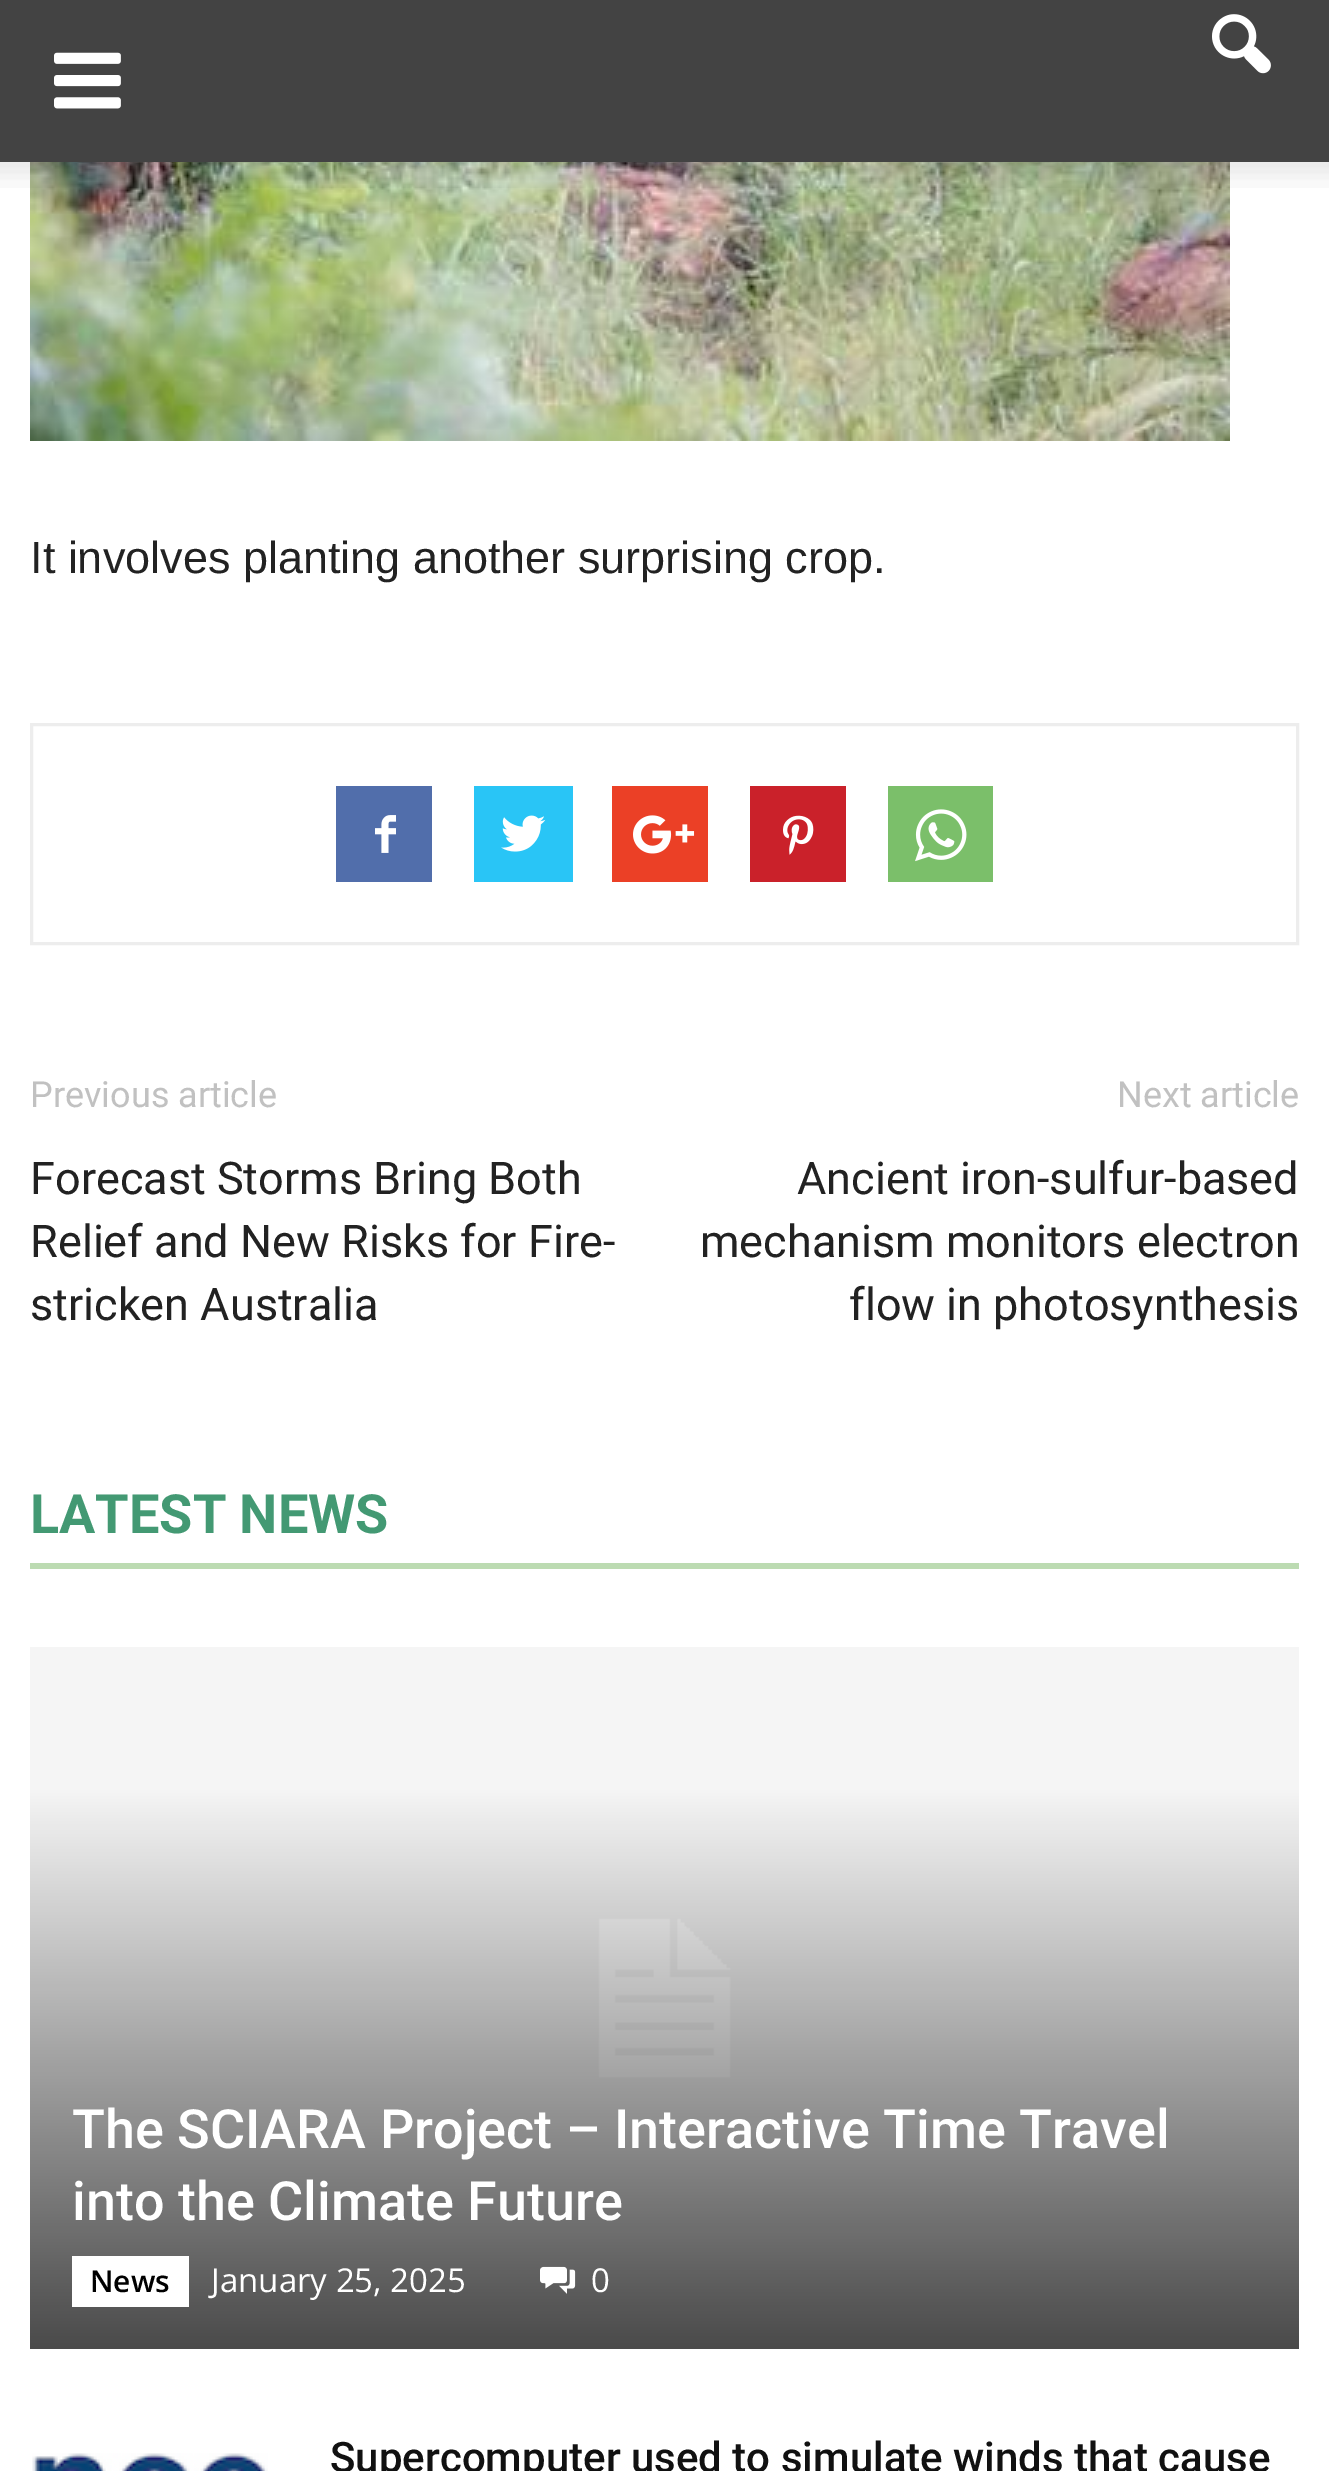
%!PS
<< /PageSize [1329 2471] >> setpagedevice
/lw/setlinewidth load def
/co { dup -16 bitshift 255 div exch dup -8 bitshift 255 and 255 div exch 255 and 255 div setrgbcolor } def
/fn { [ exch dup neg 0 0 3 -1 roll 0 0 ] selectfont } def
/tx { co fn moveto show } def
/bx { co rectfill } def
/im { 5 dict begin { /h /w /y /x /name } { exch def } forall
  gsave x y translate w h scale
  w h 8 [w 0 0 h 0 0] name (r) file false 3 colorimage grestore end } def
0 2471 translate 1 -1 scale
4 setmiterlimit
0 0 1329 2471 16#FFFFFF bx
0 0 1329 162 16#434343 bx
(media/1.raw) 1212 14 59 60 im
(media/2.raw) 54 52 67 57 im
(media/4.raw) 30 162 1200 279 im
(media/3.raw) 0 162 1329 26 im
16#EDEDED co
3 lw
31.5 724.5 1266 219 rectstroke
336 786 96 96 16#516EAB bx
(media/5.raw) 375 815 21 38 im
474 786 99 96 16#29C5F6 bx
(media/6.raw) 501 815 45 37 im
612 786 96 96 16#EB4026 bx
(media/7.raw) 633 815 62 39 im
750 786 96 96 16#CA212A bx
(media/8.raw) 783 815 31 40 im
888 786 105 96 16#7BBF6A bx
(media/9.raw) 915 809 52 53 im
30 1563 1269 6 16#BCDBB2 bx
(media/10.raw) 30 1647 1269 702 im
72 2256 117 51 16#FFFFFF bx
(media/11.raw) 540 2266 36 28 im
(media/12.raw) 32 2453 236 18 im
(It involves planting another surprising crop.) 30 573 /LiberationSans-Regular 45 16#222222 tx
(Previous article) 30 1107 /Roboto-Regular 36 16#C1C1C1 tx
(Forecast Storms Bring Both) 30 1194 /Roboto-Regular 45 16#222222 tx
(Relief and New Risks for Fire-) 30 1257 /Roboto-Regular 45 16#222222 tx
(stricken Australia) 30 1320 /Roboto-Regular 45 16#222222 tx
(Next article) 1117 1107 /Roboto-Regular 36 16#C1C1C1 tx
(Ancient iron-sulfur-based) 797 1194 /Roboto-Regular 45 16#222222 tx
(mechanism monitors electron) 700 1257 /Roboto-Regular 45 16#222222 tx
(flow in photosynthesis) 849 1320 /Roboto-Regular 45 16#222222 tx
(LATEST NEWS) 30 1533 /Roboto-Bold 54 16#439973 tx
(The SCIARA Project – Interactive Time Travel) 72 2148 /Roboto-Medium 54 16#FFFFFF tx
(into the Climate Future) 72 2220 /Roboto-Medium 54 16#FFFFFF tx
(News) 90 2292 /OpenSans-SemiBold 30 16#000000 tx
(January 25, 2025) 211 2292 /OpenSans-Regular 33 16#FFFFFF tx
(0) 591 2292 /OpenSans-Regular 33 16#FFFFFF tx
(Supercomputer used to simulate winds that cause) 330 2472 /Roboto-Medium 42 16#111111 tx
showpage
